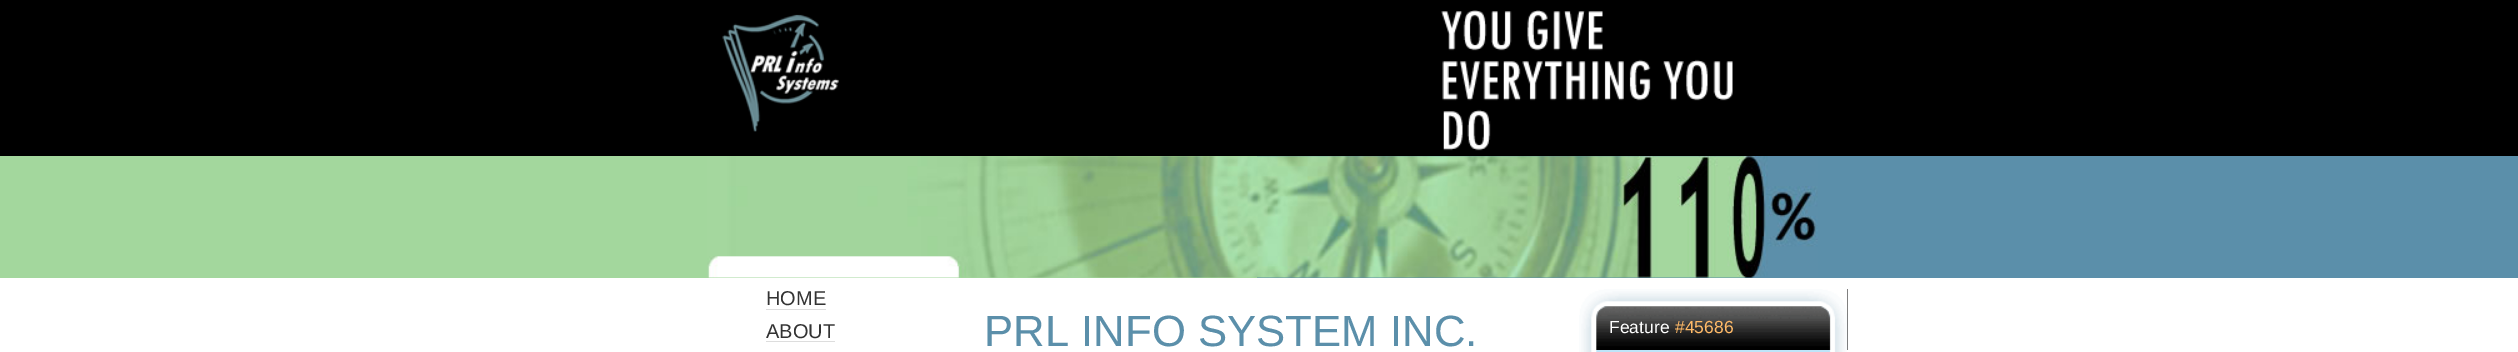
%!PS
<< /PageSize [2518 352] >> setpagedevice
/co { dup -16 bitshift 255 div exch dup -8 bitshift 255 and 255 div exch 255 and 255 div setrgbcolor } def
/fn { [ exch dup neg 0 0 3 -1 roll 0 0 ] selectfont } def
/tx { co fn moveto show } def
/bx { co rectfill } def
/im { 5 dict begin { /h /w /y /x /name } { exch def } forall
  gsave x y translate w h scale
  w h 8 [w 0 0 h 0 0] name (r) file false 3 colorimage grestore end } def
0 352 translate 1 -1 scale
4 setmiterlimit
0 0 2518 352 16#FFFFFF bx
0 0 2518 156 16#000000 bx
(media/1.raw) 697 10 1126 146 im
1257 156 1261 122 16#5B8FAA bx
0 156 1257 122 16#A3D79D bx
(media/2.raw) 707 156 1111 122 im
766 309 60 1 16#DDDDDD bx
766 341 69 1 16#DDDDDD bx
(media/3.raw) 1579 350 268 2 im
1847 289 1 61 16#000000 bx
(media/4.raw) 1579 289 269 61 im
(HOME) 766 305 /LiberationSans-Regular 20 16#333333 tx
(ABOUT) 766 338 /LiberationSans-Regular 20 16#333333 tx
(PRL INFO SYSTEM INC.) 984 346 /LiberationSans-Regular 43.75 16#5B8FAA tx
(Feature) 1609 333 /LiberationSans-Regular 17.5 16#FFFFFF tx
(#45686) 1675 333 /LiberationSans-Regular 17.5 16#FFBA68 tx
showpage
